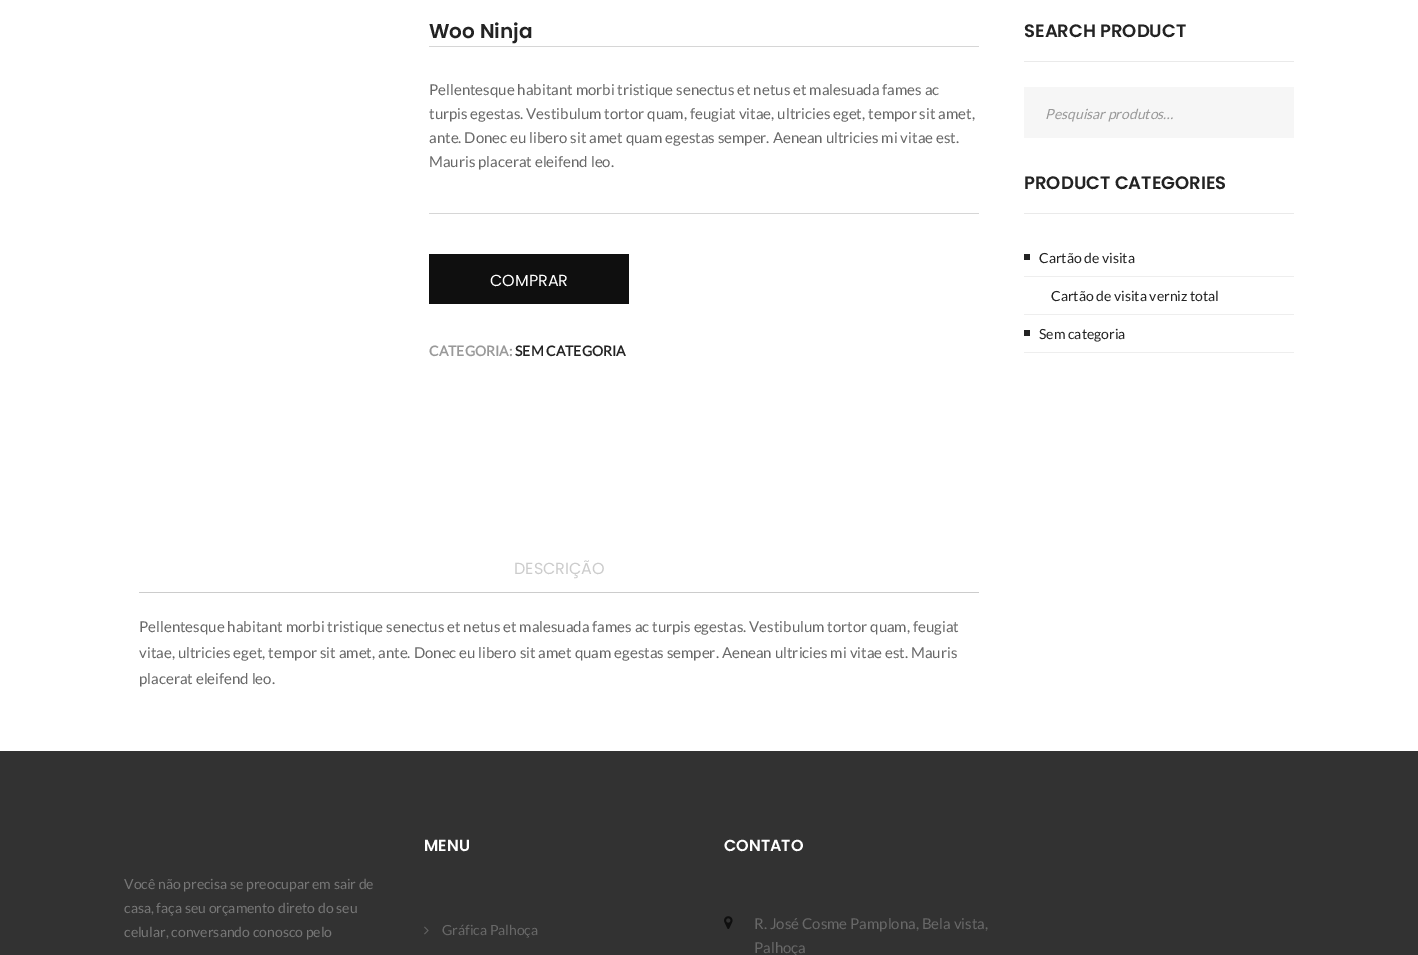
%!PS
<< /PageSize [1418 955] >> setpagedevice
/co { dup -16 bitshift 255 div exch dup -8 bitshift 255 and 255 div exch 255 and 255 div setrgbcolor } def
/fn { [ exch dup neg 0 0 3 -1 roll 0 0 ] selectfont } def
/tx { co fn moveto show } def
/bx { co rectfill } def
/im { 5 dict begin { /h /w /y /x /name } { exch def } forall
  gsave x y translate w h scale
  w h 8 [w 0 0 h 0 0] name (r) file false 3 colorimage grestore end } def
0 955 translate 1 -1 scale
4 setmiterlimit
0 0 1418 955 16#FFFFFF bx
429 46 550 1 16#D6D6D6 bx
429 213 550 1 16#D6D6D6 bx
429 254 200 50 16#0F0F0F bx
139 592 840 1 16#CCCCCC bx
1024 61 270 1 16#EAEAEA bx
1024 87 270 51 16#F6F6F6 bx
1024 213 270 1 16#EAEAEA bx
1024 314 270 1 16#EEEEEE bx
1024 254 6 6 16#232323 bx
1024 276 270 1 16#EEEEEE bx
1024 352 270 1 16#EEEEEE bx
1024 330 6 6 16#232323 bx
0 751 1418 204 16#323232 bx
(media/1.raw) 424 926 5 9 im
(media/2.raw) 724 916 9 13 im
(Woo Ninja) 429 38 /Poppins-SemiBold 20 16#232323 tx
(Pellentesque habitant morbi tristique senectus et netus et malesuada fames ac) 429 95 /Lato-Regular 15 16#686868 tx
(turpis egestas. Vestibulum tortor quam, feugiat vitae, ultricies eget, tempor sit amet,) 429 119 /Lato-Regular 15 16#686868 tx
(ante. Donec eu libero sit amet quam egestas semper. Aenean ultricies mi vitae est.) 429 143 /Lato-Regular 15 16#686868 tx
(Mauris placerat eleifend leo.) 429 167 /Lato-Regular 15 16#686868 tx
(COMPRAR) 490 286 /Poppins-Regular 16 16#FFFFFF tx
(CATEGORIA:) 429 356 /Lato-Bold 14 16#999999 tx
(SEM CATEGORIA) 515 356 /Lato-Bold 14 16#232323 tx
(DESCRIÇÃO) 514 574 /Poppins-Regular 16 16#CCCCCC tx
(Pellentesque habitant morbi tristique senectus et netus et malesuada fames ac turpis egestas. Vestibulum tortor quam, feugiat) 139 632 /Lato-Regular 15 16#686868 tx
(vitae, ultricies eget, tempor sit amet, ante. Donec eu libero sit amet quam egestas semper. Aenean ultricies mi vitae est. Mauris) 139 658 /Lato-Regular 15 16#686868 tx
(placerat eleifend leo.) 139 684 /Lato-Regular 15 16#686868 tx
(SEARCH PRODUCT) 1024 37 /Poppins-SemiBold 18 16#232323 tx
(Pesquisar produtos…) 1045 119 /Lato-Italic 14 16#999999 tx
(PRODUCT CATEGORIES) 1024 189 /Poppins-SemiBold 18 16#232323 tx
(Cartão de visita) 1039 263 /Lato-Regular 14 16#232323 tx
(Cartão de visita verniz total) 1051 301 /Lato-Regular 14 16#232323 tx
(Sem categoria) 1039 339 /Lato-Regular 14 16#232323 tx
(Você não precisa se preocupar em sair de) 124 889 /Lato-Regular 14 16#777777 tx
(casa, faça seu orçamento direto do seu) 124 913 /Lato-Regular 14 16#777777 tx
(celular, conversando conosco pelo) 124 937 /Lato-Regular 14 16#777777 tx
(MENU) 424 851 /Poppins-SemiBold 16 16#FFFFFF tx
(Gráfica Palhoça) 442 935 /Lato-Regular 14 16#686868 tx
(CONTATO) 724 851 /Poppins-SemiBold 16 16#FFFFFF tx
(R. José Cosme Pamplona, Bela vista,) 754 929 /Lato-Regular 15 16#686868 tx
(Palhoça) 754 953 /Lato-Regular 15 16#686868 tx
showpage
